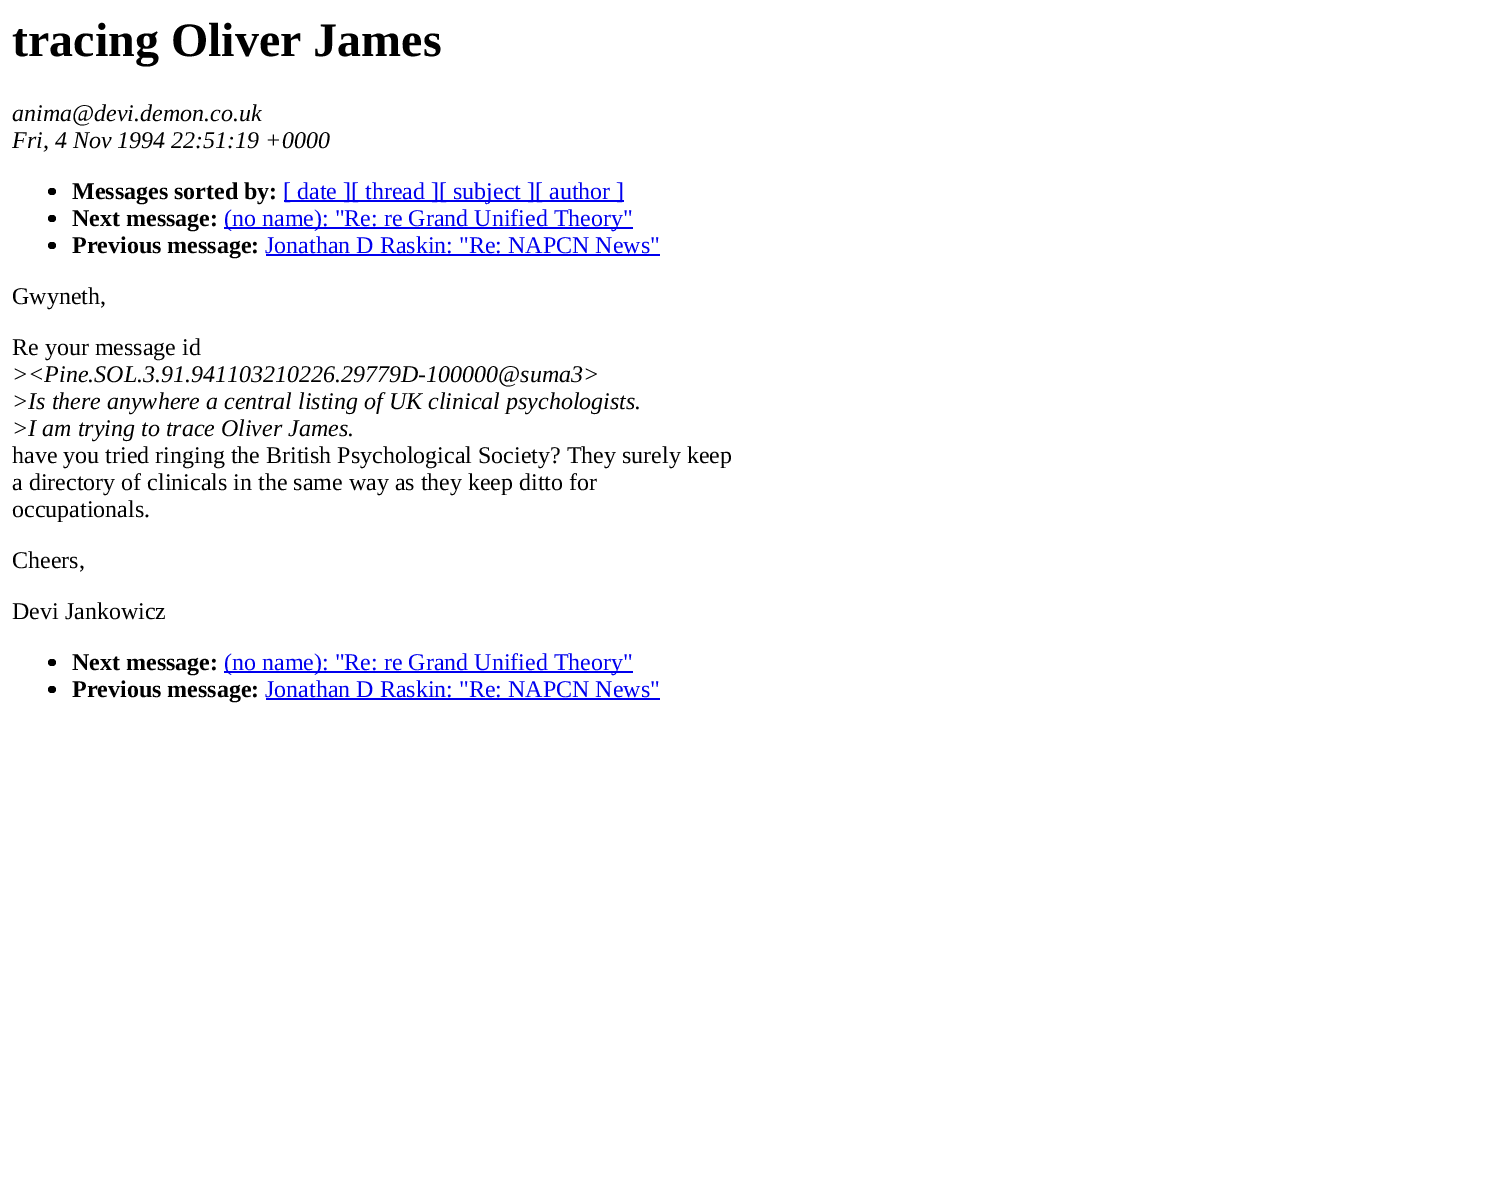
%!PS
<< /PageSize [1486 1188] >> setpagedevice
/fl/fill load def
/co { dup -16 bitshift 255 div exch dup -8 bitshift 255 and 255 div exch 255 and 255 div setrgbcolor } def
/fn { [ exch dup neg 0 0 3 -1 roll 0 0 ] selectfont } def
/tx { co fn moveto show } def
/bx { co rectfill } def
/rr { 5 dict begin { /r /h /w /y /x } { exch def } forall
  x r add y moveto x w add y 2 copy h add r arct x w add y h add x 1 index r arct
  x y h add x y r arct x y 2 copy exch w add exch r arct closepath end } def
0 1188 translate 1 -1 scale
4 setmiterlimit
0 0 1486 1188 16#FFFFFF bx
16#000000 co
48 188 8 7 3.5 rr fl
284 200 340 2 16#0000EE bx
16#000000 co
48 215 8 7 3.5 rr fl
224 227 409 2 16#0000EE bx
16#000000 co
48 242 8 7 3.5 rr fl
266 254 394 2 16#0000EE bx
16#000000 co
48 659 8 7 3.5 rr fl
224 671 409 2 16#0000EE bx
16#000000 co
48 686 8 7 3.5 rr fl
266 698 394 2 16#0000EE bx
(tracing Oliver James) 12 56 /LiberationSerif-Bold 48 16#000000 tx
(anima@devi.demon.co.uk) 12 121 /LiberationSerif-Italic 24 16#000000 tx
(Fri, 4 Nov 1994 22:51:19 +0000) 12 148 /LiberationSerif-Italic 24 16#000000 tx
(Messages sorted by:) 72 199 /LiberationSerif-Bold 24 16#000000 tx
([ date ][ thread ][ subject ][ author ]) 283 199 /LiberationSerif-Regular 24 16#0000EE tx
(Next message:) 72 226 /LiberationSerif-Bold 24 16#000000 tx
(\(no name\): "Re: re Grand Unified Theory") 224 226 /LiberationSerif-Regular 24 16#0000EE tx
(Previous message:) 72 253 /LiberationSerif-Bold 24 16#000000 tx
(Jonathan D Raskin: "Re: NAPCN News") 265 253 /LiberationSerif-Regular 24 16#0000EE tx
(Gwyneth,) 12 304 /LiberationSerif-Regular 24 16#000000 tx
(Re your message id) 12 355 /LiberationSerif-Regular 24 16#000000 tx
(><Pine.SOL.3.91.941103210226.29779D-100000@suma3>) 12 382 /LiberationSerif-Italic 24 16#000000 tx
(>Is there anywhere a central listing of UK clinical psychologists.) 12 409 /LiberationSerif-Italic 24 16#000000 tx
(>I am trying to trace Oliver James.) 12 436 /LiberationSerif-Italic 24 16#000000 tx
(have you tried ringing the British Psychological Society? They surely keep) 12 463 /LiberationSerif-Regular 24 16#000000 tx
(a directory of clinicals in the same way as they keep ditto for) 12 490 /LiberationSerif-Regular 24 16#000000 tx
(occupationals.) 12 517 /LiberationSerif-Regular 24 16#000000 tx
(Cheers,) 12 568 /LiberationSerif-Regular 24 16#000000 tx
(Devi Jankowicz) 12 619 /LiberationSerif-Regular 24 16#000000 tx
(Next message:) 72 670 /LiberationSerif-Bold 24 16#000000 tx
(\(no name\): "Re: re Grand Unified Theory") 224 670 /LiberationSerif-Regular 24 16#0000EE tx
(Previous message:) 72 697 /LiberationSerif-Bold 24 16#000000 tx
(Jonathan D Raskin: "Re: NAPCN News") 265 697 /LiberationSerif-Regular 24 16#0000EE tx
showpage
